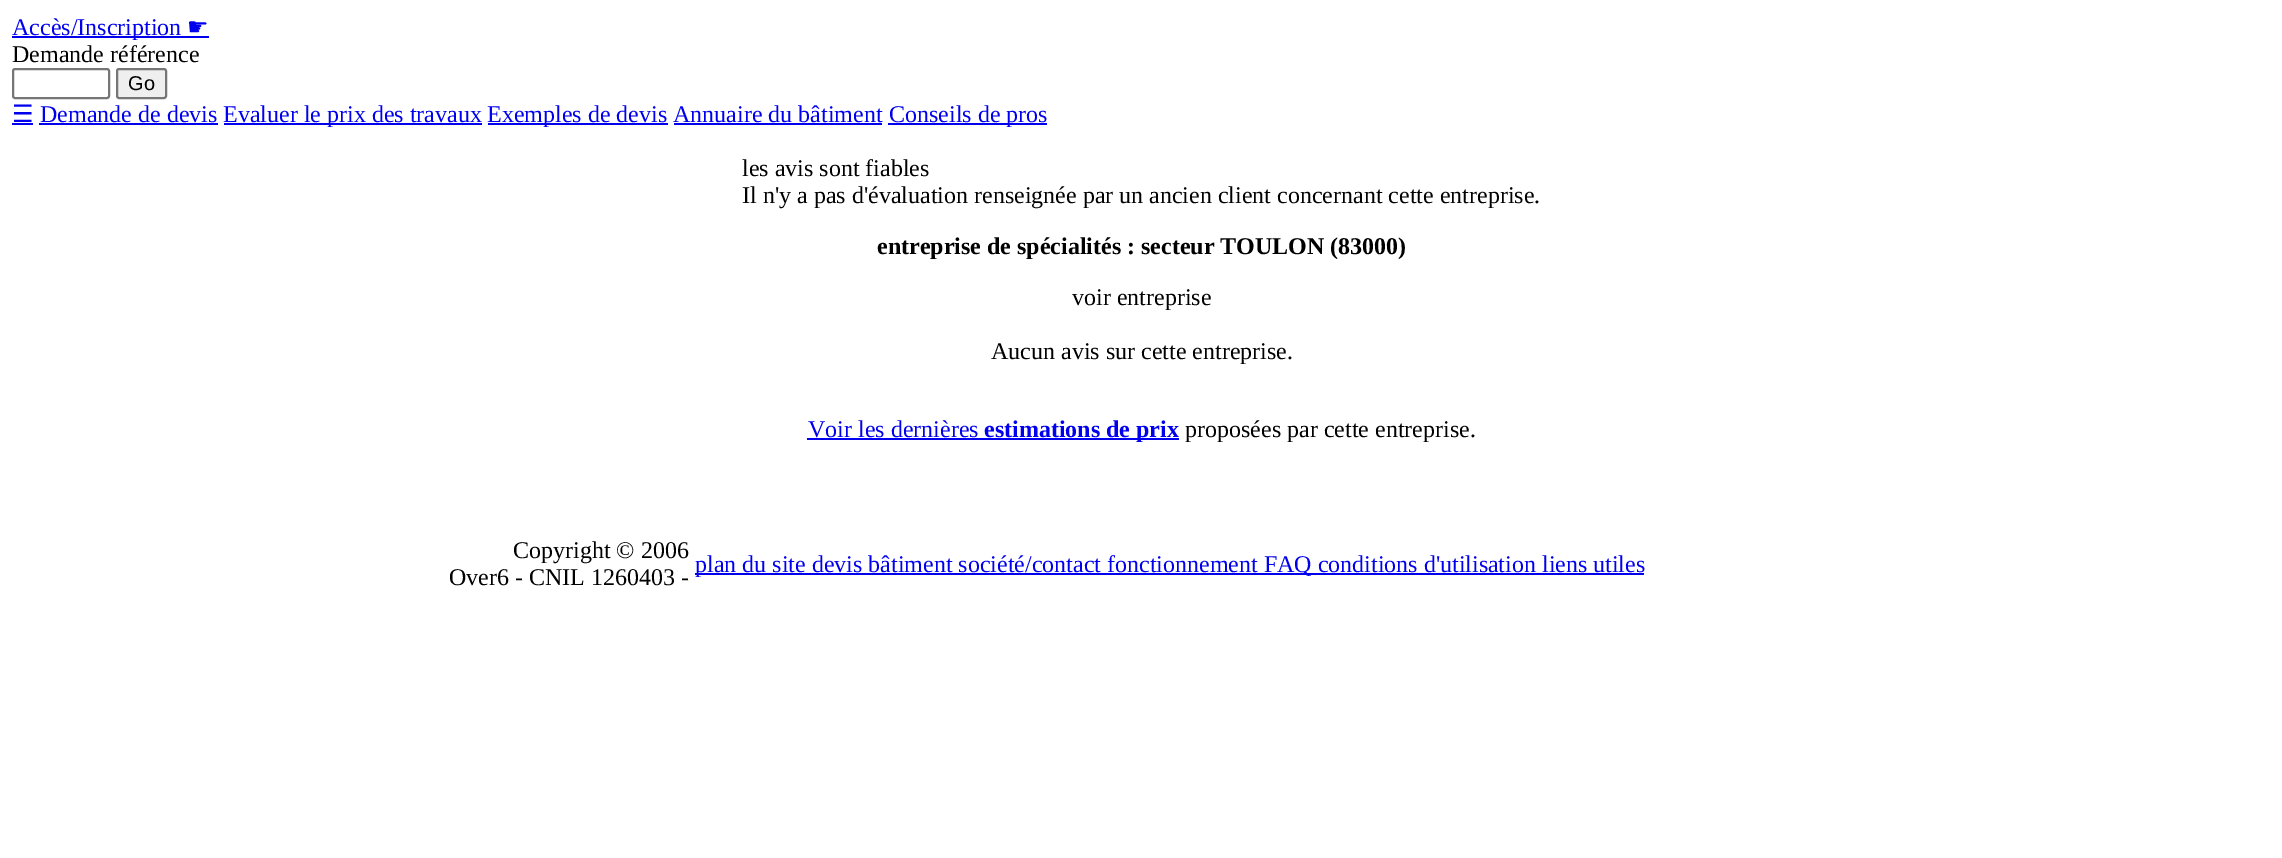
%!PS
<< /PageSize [2282 858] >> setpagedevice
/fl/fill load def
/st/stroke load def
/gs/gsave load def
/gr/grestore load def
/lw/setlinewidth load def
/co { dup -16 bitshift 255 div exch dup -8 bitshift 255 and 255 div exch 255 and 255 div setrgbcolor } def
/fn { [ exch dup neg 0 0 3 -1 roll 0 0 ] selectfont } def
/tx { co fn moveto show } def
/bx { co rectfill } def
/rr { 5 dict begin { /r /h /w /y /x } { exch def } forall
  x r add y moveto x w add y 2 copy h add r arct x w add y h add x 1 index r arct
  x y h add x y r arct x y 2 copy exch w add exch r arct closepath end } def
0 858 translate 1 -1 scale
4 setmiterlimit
0 0 2282 858 16#FFFFFF bx
12 36 197 2 16#0000EE bx
16#767676 co
2 lw
13 69 96 29 2 rr st
16#EFEFEF co
117 69 49 29 2 rr gs fl gr
16#767676 co
st
12 123 21 2 16#0000EE bx
39 123 179 2 16#0000EE bx
224 123 258 2 16#0000EE bx
488 123 180 2 16#0000EE bx
888 123 159 2 16#0000EE bx
674 123 208 2 16#0000EE bx
807 438 372 2 16#0000EE bx
695 573 949 2 16#0000EE bx
(Accès/Inscription) 12 35 /LiberationSerif-Regular 24 16#0000EE tx
(☛) 187 35 /DejaVuSans-Regular 24 16#0000EE tx
(Demande référence) 12 62 /LiberationSerif-Regular 24 16#000000 tx
(Go) 128 90 /LiberationSans-Regular 20 16#000000 tx
(☰) 12 122 /DejaVuSans-Regular 24 16#0000EE tx
(Demande de devis) 40 122 /LiberationSerif-Regular 24 16#0000EE tx
(Evaluer le prix des travaux) 223 122 /LiberationSerif-Regular 24 16#0000EE tx
(Exemples de devis Annuaire du bâtiment) 487 122 /LiberationSerif-Regular 24 16#0000EE tx
(Conseils de pros) 889 122 /LiberationSerif-Regular 24 16#0000EE tx
(les avis sont fiables) 742 176 /LiberationSerif-Regular 24 16#000000 tx
(Il n'y a pas d'évaluation renseignée par un ancien client concernant cette entreprise.) 742 203 /LiberationSerif-Regular 24 16#000000 tx
(entreprise de spécialités : secteur TOULON \(83000\)) 877 254 /LiberationSerif-Bold 24 16#000000 tx
(voir entreprise) 1072 305 /LiberationSerif-Regular 24 16#000000 tx
(Aucun avis sur cette entreprise.) 991 359 /LiberationSerif-Regular 24 16#000000 tx
(Voir les dernières) 808 437 /LiberationSerif-Regular 24 16#0000EE tx
(estimations de prix) 984 437 /LiberationSerif-Bold 24 16#0000EE tx
(proposées par cette entreprise.) 1185 437 /LiberationSerif-Regular 24 16#000000 tx
(Copyright © 2006) 513 558 /LiberationSerif-Regular 24 16#000000 tx
(Over6 - CNIL 1260403 -) 449 585 /LiberationSerif-Regular 24 16#000000 tx
(plan du site devis bâtiment société/contact fonctionnement FAQ conditions d'utilisation liens utiles) 695 572 /LiberationSerif-Regular 24 16#0000EE tx
showpage
